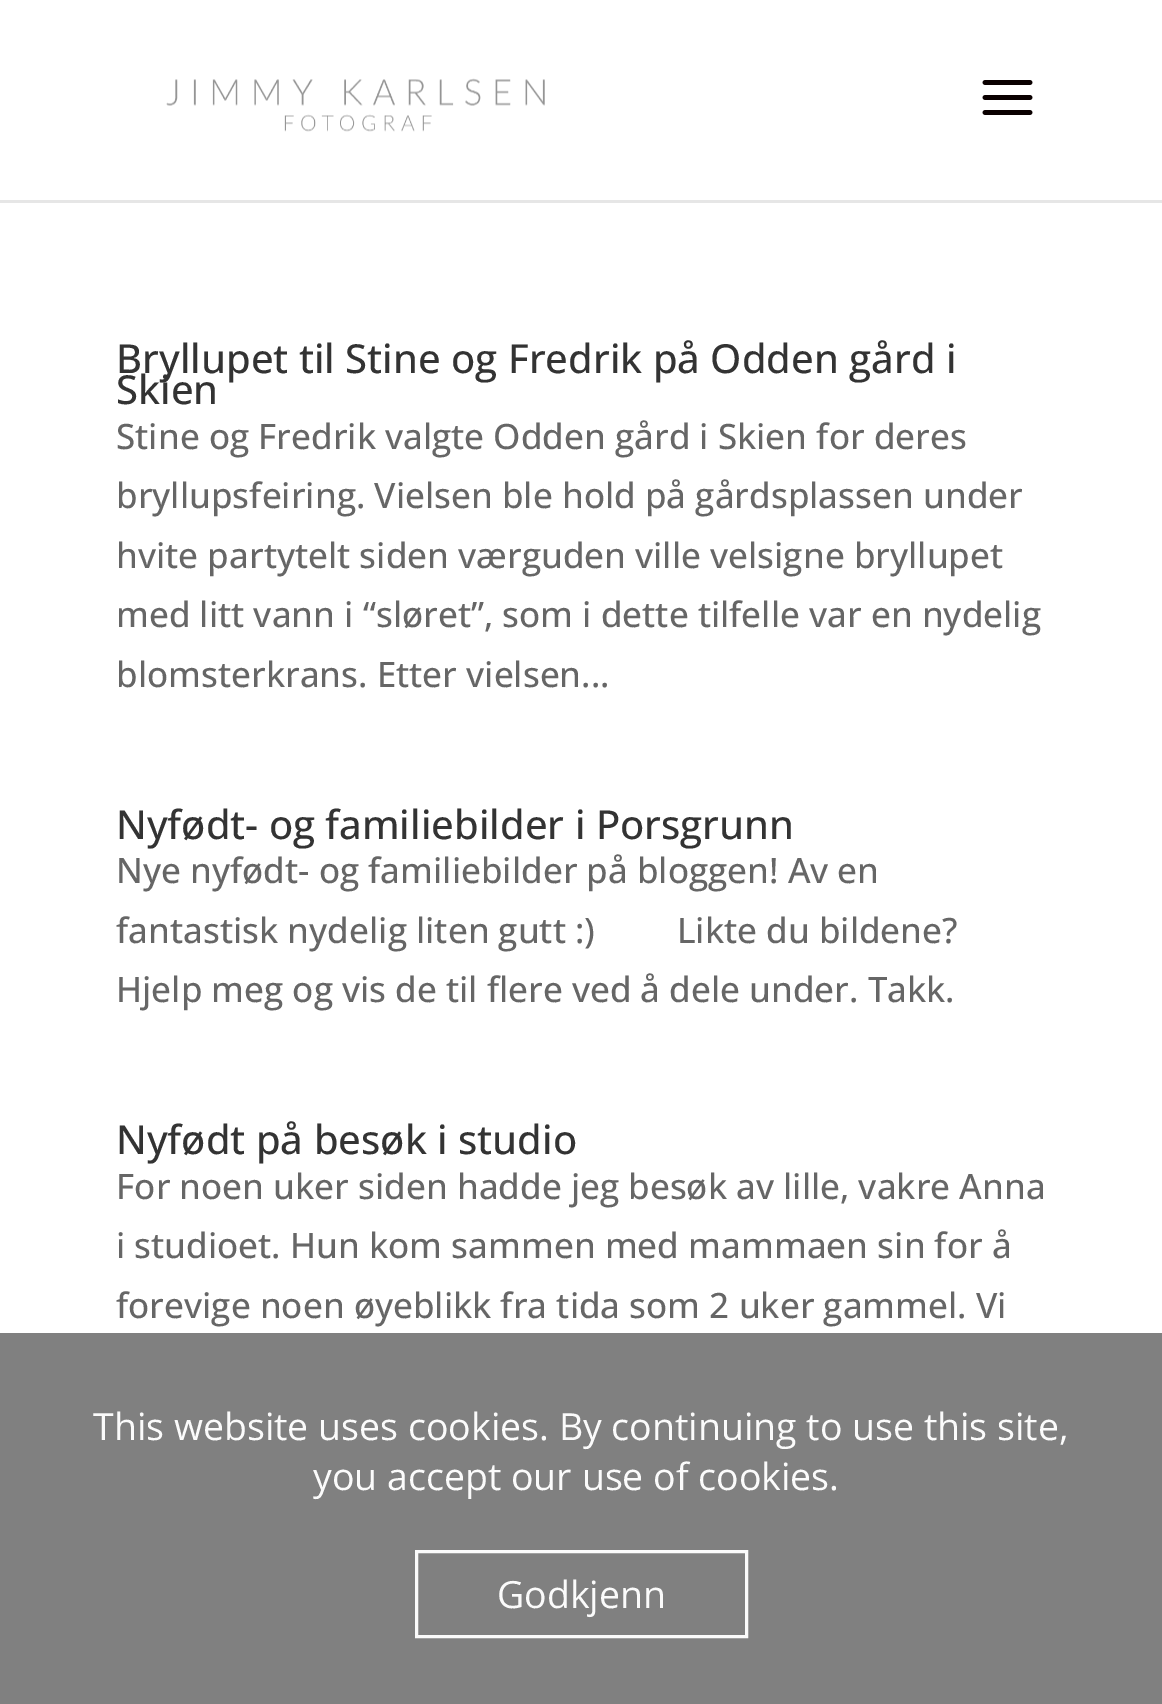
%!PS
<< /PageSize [1162 1704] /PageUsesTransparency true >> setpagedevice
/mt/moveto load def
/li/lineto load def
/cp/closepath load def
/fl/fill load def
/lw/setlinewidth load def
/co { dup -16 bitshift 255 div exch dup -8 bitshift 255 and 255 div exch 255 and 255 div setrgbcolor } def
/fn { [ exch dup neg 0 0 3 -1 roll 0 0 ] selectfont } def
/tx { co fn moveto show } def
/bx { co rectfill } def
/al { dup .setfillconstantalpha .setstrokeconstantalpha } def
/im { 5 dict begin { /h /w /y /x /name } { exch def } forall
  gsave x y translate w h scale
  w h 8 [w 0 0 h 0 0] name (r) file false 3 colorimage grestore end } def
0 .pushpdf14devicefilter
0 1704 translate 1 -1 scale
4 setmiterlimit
0 0 1162 1704 16#FFFFFF bx
0 1333 1162 371 16#808080 bx
16#E6E6E6 co
0 200 mt 0 203 li 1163 203 li 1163 3 li 1162 3 li 1162 200 li cp fl
(media/1.raw) 166 78 379 54 im
(media/2.raw) 982 80 51 35 im
0.97 al
16#FFFFFF co
3 lw
416.5 1551.5 330 85 rectstroke
1 al
(Bryllupet til Stine og Fredrik på Odden gård i) 116 373 /OpenSans-Medium 40 16#333333 tx
(Skien) 116 404 /OpenSans-Medium 40 16#333333 tx
(Stine og Fredrik valgte Odden gård i Skien for deres) 116 449 /OpenSans-Medium 35 16#666666 tx
(bryllupsfeiring. Vielsen ble hold på gårdsplassen under) 116 508 /OpenSans-Medium 35 16#666666 tx
(hvite partytelt siden værguden ville velsigne bryllupet) 116 568 /OpenSans-Medium 35 16#666666 tx
(med litt vann i “sløret”, som i dette tilfelle var en nydelig) 116 627 /OpenSans-Medium 35 16#666666 tx
(blomsterkrans. Etter vielsen...) 116 687 /OpenSans-Medium 35 16#666666 tx
(Nyfødt- og familiebilder i Porsgrunn) 116 839 /OpenSans-Medium 40 16#333333 tx
(Nye nyfødt- og familiebilder på bloggen! Av en) 116 883 /OpenSans-Medium 35 16#666666 tx
(fantastisk nydelig liten gutt :\)         Likte du bildene?) 116 943 /OpenSans-Medium 35 16#666666 tx
(Hjelp meg og vis de til flere ved å dele under. Takk.) 116 1002 /OpenSans-Medium 35 16#666666 tx
(Nyfødt på besøk i studio) 116 1154 /OpenSans-Medium 40 16#333333 tx
(For noen uker siden hadde jeg besøk av lille, vakre Anna) 116 1199 /OpenSans-Medium 35 16#666666 tx
(i studioet. Hun kom sammen med mammaen sin for å) 116 1258 /OpenSans-Medium 35 16#666666 tx
(forevige noen øyeblikk fra tida som 2 uker gammel. Vi) 116 1318 /OpenSans-Medium 35 16#666666 tx
(This website uses cookies. By continuing to use this site,) 93 1440 /OpenSans-Regular 37.5 16#FBFBFB tx
(you accept our use of cookies.) 313 1490 /OpenSans-Regular 37.5 16#FBFBFB tx
(Godkjenn) 497 1608 /OpenSans-Regular 37.5 16#FBFBFB tx
.poppdf14devicefilter showpage
